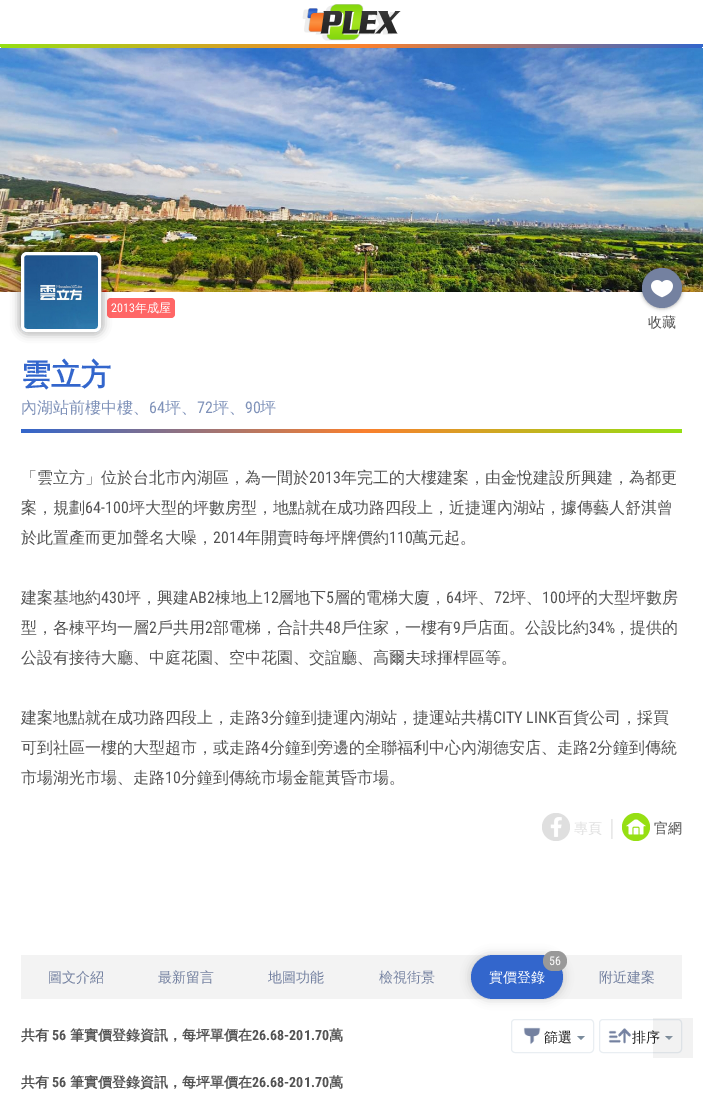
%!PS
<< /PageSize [703 1108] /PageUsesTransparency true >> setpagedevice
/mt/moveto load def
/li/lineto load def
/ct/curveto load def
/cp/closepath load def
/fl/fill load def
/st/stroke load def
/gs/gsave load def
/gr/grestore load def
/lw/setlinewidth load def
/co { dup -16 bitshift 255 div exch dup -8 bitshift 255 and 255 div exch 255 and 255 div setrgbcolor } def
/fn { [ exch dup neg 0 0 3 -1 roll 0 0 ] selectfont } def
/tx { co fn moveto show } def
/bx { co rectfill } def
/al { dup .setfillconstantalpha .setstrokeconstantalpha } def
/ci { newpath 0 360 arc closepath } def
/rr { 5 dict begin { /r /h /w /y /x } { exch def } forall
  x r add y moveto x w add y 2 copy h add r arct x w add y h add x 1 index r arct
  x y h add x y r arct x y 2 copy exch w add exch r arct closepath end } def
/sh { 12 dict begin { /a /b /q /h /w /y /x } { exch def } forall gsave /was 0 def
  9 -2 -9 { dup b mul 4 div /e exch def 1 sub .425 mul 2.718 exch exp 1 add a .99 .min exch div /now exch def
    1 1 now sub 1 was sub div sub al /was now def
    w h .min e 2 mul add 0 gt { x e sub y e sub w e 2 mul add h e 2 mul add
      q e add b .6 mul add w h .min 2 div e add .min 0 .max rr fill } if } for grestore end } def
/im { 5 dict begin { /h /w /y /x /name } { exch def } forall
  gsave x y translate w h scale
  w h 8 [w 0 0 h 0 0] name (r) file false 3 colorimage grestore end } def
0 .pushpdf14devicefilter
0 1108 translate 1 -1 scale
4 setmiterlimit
0 0 703 1108 16#FFFFFF bx
(media/1.raw) 302 4 99 37 im
gs 0 44 mt 703 44 li 703 46 701 48 699 48 ct 4 48 li 2 48 0 46 0 44 ct cp clip newpath
<< /ShadingType 2 /ColorSpace /DeviceRGB /Coords [0 46 703 46] /Extend [true true] /Function << /FunctionType 3 /Domain [0 1] /Functions [<< /FunctionType 2 /Domain [0 1] /C0 [.588 .875 .075] /C1 [.98 .502 .18] /N 1 >> << /FunctionType 2 /Domain [0 1] /C0 [.98 .502 .18] /C1 [.2 .4 .8] /N 1 >>] /Bounds [.52] /Encode [0 1 0 1] >> >> shfill gr
(media/2.raw) 0 48 703 244 im
16#000000 co
21 252 80 80 6 5 .5 sh
(media/3.raw) 21 252 80 80 im
16#FFFFFF co
3 lw
22.5 253.5 77 77 4.5 rr st
0.6 al
16#FF0000 co
107 298 68 20 4 rr fl
1 al
16#000000 co
642 268 40 40 20 2 .4 sh
16#7481A0 co
662 288 20 ci fl
(media/4.raw) 651 280 22 18 im
gs 21 429 661 4 2 rr clip newpath
<< /ShadingType 2 /ColorSpace /DeviceRGB /Coords [21 431 682 431] /Extend [true true] /Function << /FunctionType 3 /Domain [0 1] /Functions [<< /FunctionType 2 /Domain [0 1] /C0 [.2 .4 .8] /C1 [.98 .502 .18] /N 1 >> << /FunctionType 2 /Domain [0 1] /C0 [.98 .502 .18] /C1 [.588 .875 .075] /N 1 >>] /Bounds [.52] /Encode [0 1 0 1] >> >> shfill gr
16#DFDFDF co
556 827 14 ci fl
(media/5.raw) 550 817 12 20 im
16#96DF13 co
636 827 14 ci fl
(media/6.raw) 626 819 20 16 im
21 955 661 44 16#F3F3F3 bx
16#000000 co
471 955 92 44 22 5 .2 sh
16#3366CC co
471 955 92 44 22 rr fl
16#E9EEF2 co
1 lw
511.5 1019.5 82 33 3.5 rr st
(media/7.raw) 523 1027 18 18 im
16#7B8C9C co
577 1036 mt 585 1036 li 581 1040 li cp fl
16#E9EEF2 co
599.5 1019.5 82 33 3.5 rr st
(media/8.raw) 608 1028 24 16 im
16#7B8C9C co
665 1036 mt 673 1036 li 669 1040 li cp fl
0.06 al
653 1018 40 40 16#231F20 bx
1 al
(media/9.raw) 667 1036 6 4 im
(2013) 111 312 /RobotoCondensed-Regular 12 16#FFFFFF tx
(年成屋) 135 312 /WenQuanYiZenHei-Medium 12 16#FFFFFF tx
(收藏) 648 327 /WenQuanYiZenHei-Medium 14 16#525252 tx
(雲立方) 21 385 /WenQuanYiZenHei-Bold 30 16#3366CC tx
(內湖站前樓中樓、) 21 413 /WenQuanYiZenHei-Medium 16 16#7F92B9 tx
(64) 149 413 /RobotoCondensed-Regular 16 16#7F92B9 tx
(坪、) 165 413 /WenQuanYiZenHei-Medium 16 16#7F92B9 tx
(72) 197 413 /RobotoCondensed-Regular 16 16#7F92B9 tx
(坪、) 213 413 /WenQuanYiZenHei-Medium 16 16#7F92B9 tx
(90) 245 413 /RobotoCondensed-Regular 16 16#7F92B9 tx
(坪) 260 413 /WenQuanYiZenHei-Medium 16 16#7F92B9 tx
(「雲立方」位於台北市內湖區，為一間於) 21 483 /WenQuanYiZenHei-Medium 16 16#525252 tx
(2013) 309 483 /RobotoCondensed-Regular 16 16#525252 tx
(年完工的大樓建案，由金悅建設所興建，為都更) 341 483 /WenQuanYiZenHei-Medium 16 16#525252 tx
(案，規劃) 21 513 /WenQuanYiZenHei-Medium 16 16#525252 tx
(64-100) 85 513 /RobotoCondensed-Regular 16 16#525252 tx
(坪大型的坪數房型，地點就在成功路四段上，近捷運內湖站，據傳藝人舒淇曾) 129 513 /WenQuanYiZenHei-Medium 16 16#525252 tx
(於此置產而更加聲名大噪，) 21 543 /WenQuanYiZenHei-Medium 16 16#525252 tx
(2014) 213 543 /RobotoCondensed-Regular 16 16#525252 tx
(年開賣時每坪牌價約) 245 543 /WenQuanYiZenHei-Medium 16 16#525252 tx
(110) 389 543 /RobotoCondensed-Regular 16 16#525252 tx
(萬元起。) 412 543 /WenQuanYiZenHei-Medium 16 16#525252 tx
(建案基地約) 21 603 /WenQuanYiZenHei-Medium 16 16#525252 tx
(430) 101 603 /RobotoCondensed-Regular 16 16#525252 tx
(坪，興建) 125 603 /WenQuanYiZenHei-Medium 16 16#525252 tx
(AB2) 189 603 /RobotoCondensed-Regular 16 16#525252 tx
(棟地上) 215 603 /WenQuanYiZenHei-Medium 16 16#525252 tx
(12) 263 603 /RobotoCondensed-Regular 16 16#525252 tx
(層地下) 278 603 /WenQuanYiZenHei-Medium 16 16#525252 tx
(5) 326 603 /RobotoCondensed-Regular 16 16#525252 tx
(層的電梯大廈，) 334 603 /WenQuanYiZenHei-Medium 16 16#525252 tx
(64) 446 603 /RobotoCondensed-Regular 16 16#525252 tx
(坪、) 462 603 /WenQuanYiZenHei-Medium 16 16#525252 tx
(72) 494 603 /RobotoCondensed-Regular 16 16#525252 tx
(坪、) 510 603 /WenQuanYiZenHei-Medium 16 16#525252 tx
(100) 542 603 /RobotoCondensed-Regular 16 16#525252 tx
(坪的大型坪數房) 566 603 /WenQuanYiZenHei-Medium 16 16#525252 tx
(型，各棟平均一層) 21 633 /WenQuanYiZenHei-Medium 16 16#525252 tx
(2) 149 633 /RobotoCondensed-Regular 16 16#525252 tx
(戶共用) 157 633 /WenQuanYiZenHei-Medium 16 16#525252 tx
(2) 205 633 /RobotoCondensed-Regular 16 16#525252 tx
(部電梯，合計共) 213 633 /WenQuanYiZenHei-Medium 16 16#525252 tx
(48) 325 633 /RobotoCondensed-Regular 16 16#525252 tx
(戶住家，一樓有) 341 633 /WenQuanYiZenHei-Medium 16 16#525252 tx
(9) 453 633 /RobotoCondensed-Regular 16 16#525252 tx
(戶店面。公設比約) 461 633 /WenQuanYiZenHei-Medium 16 16#525252 tx
(34%) 589 633 /RobotoCondensed-Regular 16 16#525252 tx
(，提供的) 614 633 /WenQuanYiZenHei-Medium 16 16#525252 tx
(公設有接待大廳、中庭花園、空中花園、交誼廳、高爾夫球揮桿區等。) 21 663 /WenQuanYiZenHei-Medium 16 16#525252 tx
(建案地點就在成功路四段上，走路) 21 723 /WenQuanYiZenHei-Medium 16 16#525252 tx
(3) 261 723 /RobotoCondensed-Regular 16 16#525252 tx
(分鐘到捷運內湖站，捷運站共構) 269 723 /WenQuanYiZenHei-Medium 16 16#525252 tx
(CITY LINK) 493 723 /RobotoCondensed-Regular 16 16#525252 tx
(百貨公司，採買) 557 723 /WenQuanYiZenHei-Medium 16 16#525252 tx
(可到社區一樓的大型超市，或走路) 21 753 /WenQuanYiZenHei-Medium 16 16#525252 tx
(4) 261 753 /RobotoCondensed-Regular 16 16#525252 tx
(分鐘到旁邊的全聯福利中心內湖德安店、走路) 269 753 /WenQuanYiZenHei-Medium 16 16#525252 tx
(2) 589 753 /RobotoCondensed-Regular 16 16#525252 tx
(分鐘到傳統) 597 753 /WenQuanYiZenHei-Medium 16 16#525252 tx
(市場湖光市場、走路) 21 783 /WenQuanYiZenHei-Medium 16 16#525252 tx
(10) 165 783 /RobotoCondensed-Regular 16 16#525252 tx
(分鐘到傳統市場金龍黃昏市場。) 181 783 /WenQuanYiZenHei-Medium 16 16#525252 tx
(專頁) 574 833 /WenQuanYiZenHei-Medium 14 16#DFDFDF tx
(｜) 602 834 /WenQuanYiZenHei-Medium 20 16#DFDFDF tx
(官網) 654 833 /WenQuanYiZenHei-Medium 14 16#525252 tx
(圖文介紹) 48 982 /WenQuanYiZenHei-Medium 14 16#7481A0 tx
(最新留言) 158 982 /WenQuanYiZenHei-Medium 14 16#7481A0 tx
(地圖功能) 268 982 /WenQuanYiZenHei-Medium 14 16#7481A0 tx
(檢視街景) 379 982 /WenQuanYiZenHei-Medium 14 16#7481A0 tx
(實價登錄) 489 982 /WenQuanYiZenHei-Medium 14 16#FFFFFF tx
16#999999 co
543 951 24 20 10 rr fl
(56) 549 965 /RobotoCondensed-Regular 12 16#FFFFFF tx
(附近建案) 599 982 /WenQuanYiZenHei-Medium 14 16#7481A0 tx
(共有) 21 1040 /WenQuanYiZenHei-Bold 14 16#525252 tx
(56) 52 1040 /RobotoCondensed-Bold 14 16#525252 tx
(筆實價登錄資訊，每坪單價在) 70 1040 /WenQuanYiZenHei-Bold 14 16#525252 tx
(26.68-201.70) 252 1040 /RobotoCondensed-Bold 14 16#525252 tx
(萬) 329 1040 /WenQuanYiZenHei-Bold 14 16#525252 tx
(篩選) 544 1042 /WenQuanYiZenHei-Medium 14 16#272727 tx
(排序) 632 1042 /WenQuanYiZenHei-Medium 14 16#272727 tx
(共有) 21 1087 /WenQuanYiZenHei-Bold 14 16#525252 tx
(56) 52 1087 /RobotoCondensed-Bold 14 16#525252 tx
(筆實價登錄資訊，每坪單價在) 70 1087 /WenQuanYiZenHei-Bold 14 16#525252 tx
(26.68-201.70) 252 1087 /RobotoCondensed-Bold 14 16#525252 tx
(萬) 329 1087 /WenQuanYiZenHei-Bold 14 16#525252 tx
.poppdf14devicefilter showpage
